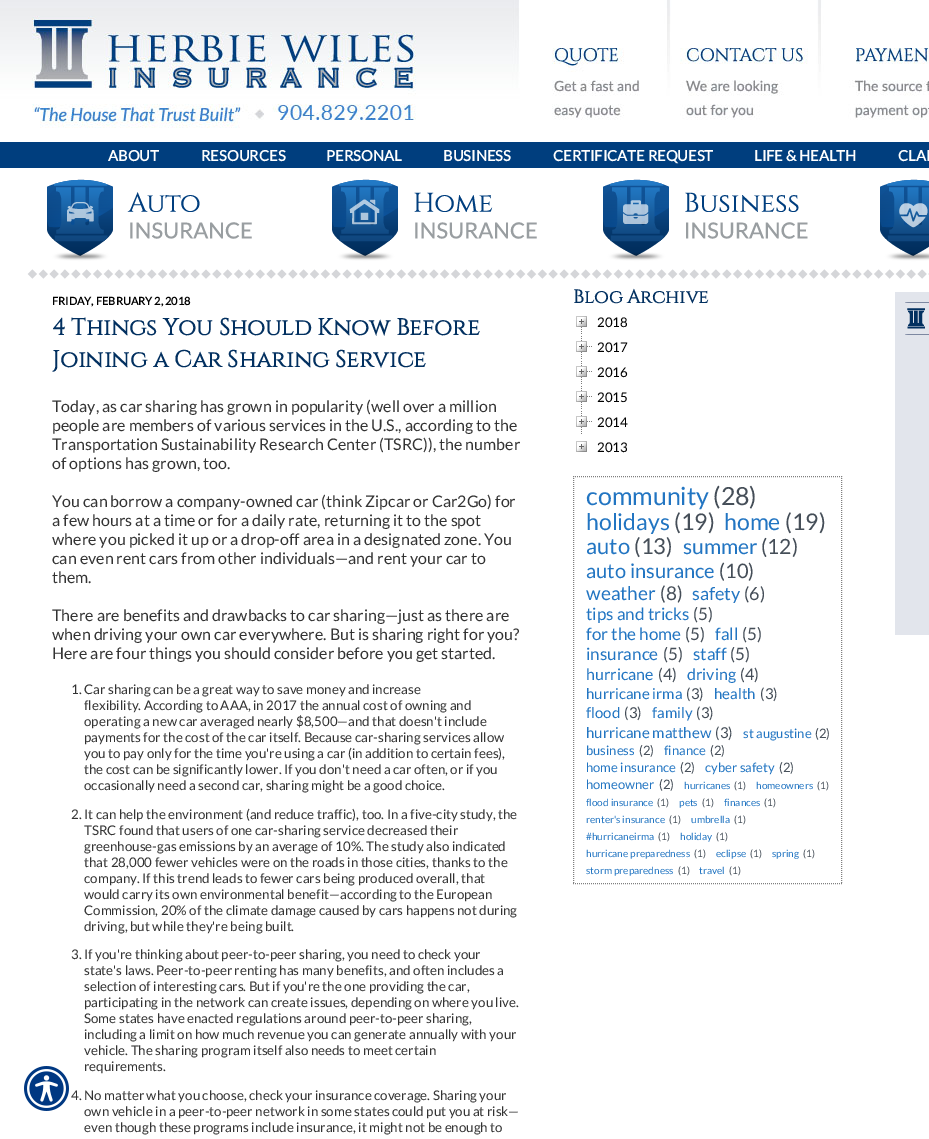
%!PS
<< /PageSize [929 1139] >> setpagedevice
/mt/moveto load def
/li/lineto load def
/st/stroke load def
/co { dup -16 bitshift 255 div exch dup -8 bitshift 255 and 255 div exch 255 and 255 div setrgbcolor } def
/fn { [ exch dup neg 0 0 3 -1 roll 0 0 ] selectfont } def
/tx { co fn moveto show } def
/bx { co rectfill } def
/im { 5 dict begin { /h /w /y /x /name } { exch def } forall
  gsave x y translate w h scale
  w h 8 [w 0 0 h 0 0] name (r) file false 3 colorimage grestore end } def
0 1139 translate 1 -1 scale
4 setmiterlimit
0 0 929 1139 16#FFFFFF bx
(media/1.raw) 24 1066 45 45 im
(media/2.raw) 0 0 929 128 im
0 142 929 26 16#003E7E bx
(media/3.raw) 0 168 929 114 im
(media/4.raw) 581 327 1 7 im
(media/5.raw) 576 316 11 11 im
(media/6.raw) 581 336 1 23 im
(media/7.raw) 587 346 5 1 im
(media/5.raw) 576 341 11 11 im
(media/6.raw) 581 361 1 23 im
(media/7.raw) 587 371 5 1 im
(media/5.raw) 576 366 11 11 im
(media/6.raw) 581 386 1 23 im
(media/7.raw) 587 396 5 1 im
(media/5.raw) 576 391 11 11 im
(media/6.raw) 581 411 1 23 im
(media/7.raw) 587 421 5 1 im
(media/5.raw) 576 416 11 11 im
(media/5.raw) 576 441 11 11 im
16#7F7F7F co
[1 1] 0 setdash
573 476.5 mt 842 476.5 li st
841.5 476 mt 841.5 884 li st
573 883.5 mt 842 883.5 li st
573.5 476 mt 573.5 884 li st
(media/8.raw) 895 292 34 343 im
(ABOUT) 108 161 /Lato-Bold 14.75 16#FFFFFF tx
(RESOURCES) 201 161 /Lato-Bold 14.75 16#FFFFFF tx
(PERSONAL) 326 161 /Lato-Bold 14.75 16#FFFFFF tx
(BUSINESS) 443 161 /Lato-Bold 14.75 16#FFFFFF tx
(CERTIFICATE REQUEST) 553 161 /Lato-Bold 14.75 16#FFFFFF tx
(LIFE & HEALTH) 754 161 /Lato-Bold 14.75 16#FFFFFF tx
(CLAI) 898 161 /Lato-Bold 14.75 16#FFFFFF tx
(FRIDAY, FEBRUARY 2, 2018) 52 305 /Lato-Bold 11 16#000000 tx
(4 Things You Should Know Before) 52 335 /Cinzel-Bold 23.3 16#023060 tx
(Joining a Car Sharing Service) 52 367 /Cinzel-Bold 23.3 16#023060 tx
(Today, as car sharing has grown in popularity \(well over a million) 52 412 /Lato-Regular 16 16#333333 tx
(people are members of various services in the U.S., according to the) 52 431 /Lato-Regular 16 16#333333 tx
(Transportation Sustainability Research Center \(TSRC\)\), the number) 52 450 /Lato-Regular 16 16#333333 tx
(of options has grown, too.) 52 469 /Lato-Regular 16 16#333333 tx
(You can borrow a company-owned car \(think Zipcar or Car2Go\) for) 52 507 /Lato-Regular 16 16#333333 tx
(a few hours at a time or for a daily rate, returning it to the spot) 52 526 /Lato-Regular 16 16#333333 tx
(where you picked it up or a drop-off area in a designated zone. You) 52 545 /Lato-Regular 16 16#333333 tx
(can even rent cars from other individuals—and rent your car to) 52 564 /Lato-Regular 16 16#333333 tx
(them.) 52 583 /Lato-Regular 16 16#333333 tx
(There are benefits and drawbacks to car sharing—just as there are) 52 621 /Lato-Regular 16 16#333333 tx
(when driving your own car everywhere. But is sharing right for you?) 52 640 /Lato-Regular 16 16#333333 tx
(Here are four things you should consider before you get started.) 52 659 /Lato-Regular 16 16#333333 tx
(1.) 71 694 /Lato-Regular 13.3 16#333333 tx
(Car sharing can be a great way to save money and increase) 84 694 /Lato-Regular 13.3 16#333333 tx
(flexibility. According to AAA, in 2017 the annual cost of owning and) 84 710 /Lato-Regular 13.3 16#333333 tx
(operating a new car averaged nearly $8,500—and that doesn't include) 84 726 /Lato-Regular 13.3 16#333333 tx
(payments for the cost of the car itself. Because car-sharing services allow) 84 742 /Lato-Regular 13.3 16#333333 tx
(you to pay only for the time you're using a car \(in addition to certain fees\),) 84 758 /Lato-Regular 13.3 16#333333 tx
(the cost can be significantly lower. If you don't need a car often, or if you) 84 774 /Lato-Regular 13.3 16#333333 tx
(occasionally need a second car, sharing might be a good choice.) 84 790 /Lato-Regular 13.3 16#333333 tx
(2.) 71 819 /Lato-Regular 13.3 16#333333 tx
(It can help the environment \(and reduce traffic\), too. In a five-city study, the) 84 819 /Lato-Regular 13.3 16#333333 tx
(TSRC found that users of one car-sharing service decreased their) 84 835 /Lato-Regular 13.3 16#333333 tx
(greenhouse-gas emissions by an average of 10%. The study also indicated) 84 851 /Lato-Regular 13.3 16#333333 tx
(that 28,000 fewer vehicles were on the roads in those cities, thanks to the) 84 867 /Lato-Regular 13.3 16#333333 tx
(company. If this trend leads to fewer cars being produced overall, that) 84 883 /Lato-Regular 13.3 16#333333 tx
(would carry its own environmental benefit—according to the European) 84 899 /Lato-Regular 13.3 16#333333 tx
(Commission, 20% of the climate damage caused by cars happens not during) 84 915 /Lato-Regular 13.3 16#333333 tx
(driving, but while they're being built.) 84 931 /Lato-Regular 13.3 16#333333 tx
(3.) 71 959 /Lato-Regular 13.3 16#333333 tx
(If you're thinking about peer-to-peer sharing, you need to check your) 84 959 /Lato-Regular 13.3 16#333333 tx
(state's laws. Peer-to-peer renting has many benefits, and often includes a) 84 975 /Lato-Regular 13.3 16#333333 tx
(selection of interesting cars. But if you're the one providing the car,) 84 991 /Lato-Regular 13.3 16#333333 tx
(participating in the network can create issues, depending on where you live.) 84 1007 /Lato-Regular 13.3 16#333333 tx
(Some states have enacted regulations around peer-to-peer sharing,) 84 1023 /Lato-Regular 13.3 16#333333 tx
(including a limit on how much revenue you can generate annually with your) 84 1039 /Lato-Regular 13.3 16#333333 tx
(vehicle. The sharing program itself also needs to meet certain) 84 1055 /Lato-Regular 13.3 16#333333 tx
(requirements.) 84 1071 /Lato-Regular 13.3 16#333333 tx
(4.) 71 1100 /Lato-Regular 13.3 16#333333 tx
(No matter what you choose, check your insurance coverage. Sharing your) 84 1100 /Lato-Regular 13.3 16#333333 tx
(own vehicle in a peer-to-peer network in some states could put you at risk—) 84 1116 /Lato-Regular 13.3 16#333333 tx
(even though these programs include insurance, it might not be enough to) 84 1132 /Lato-Regular 13.3 16#333333 tx
(Blog Archive) 573 303 /Cinzel-Bold 18.75 16#023060 tx
(2018) 597 327 /Lato-Regular 13.3 16#000000 tx
(2017) 597 352 /Lato-Regular 13.3 16#000000 tx
(2016) 597 377 /Lato-Regular 13.3 16#000000 tx
(2015) 597 402 /Lato-Regular 13.3 16#000000 tx
(2014) 597 427 /Lato-Regular 13.3 16#000000 tx
(2013) 597 452 /Lato-Regular 13.3 16#000000 tx
(community) 586 505 /Lato-Regular 25 16#2275C2 tx
(\(28\)) 713 505 /Lato-Regular 25 16#454E58 tx
(holidays) 586 530 /Lato-Regular 23 16#2275C2 tx
(\(19\)) 674 530 /Lato-Regular 23 16#454E58 tx
(home) 724 530 /Lato-Regular 23 16#2275C2 tx
(\(19\)) 785 530 /Lato-Regular 23 16#454E58 tx
(auto) 586 554 /Lato-Regular 22 16#2275C2 tx
(\(13\)) 634 554 /Lato-Regular 22 16#454E58 tx
(summer) 683 554 /Lato-Regular 21 16#2275C2 tx
(\(12\)) 761 554 /Lato-Regular 21 16#454E58 tx
(auto insurance) 586 578 /Lato-Regular 20 16#2275C2 tx
(\(10\)) 719 578 /Lato-Regular 20 16#454E58 tx
(weather) 586 600 /Lato-Regular 19 16#2275C2 tx
(\(8\)) 660 600 /Lato-Regular 19 16#454E58 tx
(safety) 692 600 /Lato-Regular 18 16#2275C2 tx
(\(6\)) 744 600 /Lato-Regular 18 16#454E58 tx
(tips and tricks) 586 620 /Lato-Regular 17 16#2275C2 tx
(\(5\)) 693 620 /Lato-Regular 17 16#454E58 tx
(for the home) 586 640 /Lato-Regular 17 16#2275C2 tx
(\(5\)) 685 640 /Lato-Regular 17 16#454E58 tx
(fall) 715 640 /Lato-Regular 17 16#2275C2 tx
(\(5\)) 742 640 /Lato-Regular 17 16#454E58 tx
(insurance) 586 660 /Lato-Regular 17 16#2275C2 tx
(\(5\)) 663 660 /Lato-Regular 17 16#454E58 tx
(staff) 693 660 /Lato-Regular 17 16#2275C2 tx
(\(5\)) 730 660 /Lato-Regular 17 16#454E58 tx
(hurricane) 586 680 /Lato-Regular 16 16#2275C2 tx
(\(4\)) 658 680 /Lato-Regular 16 16#454E58 tx
(driving) 687 680 /Lato-Regular 16 16#2275C2 tx
(\(4\)) 740 680 /Lato-Regular 16 16#454E58 tx
(hurricane irma) 586 699 /Lato-Regular 15 16#2275C2 tx
(\(3\)) 686 699 /Lato-Regular 15 16#454E58 tx
(health) 714 699 /Lato-Regular 15 16#2275C2 tx
(\(3\)) 760 699 /Lato-Regular 15 16#454E58 tx
(flood) 586 718 /Lato-Regular 15 16#2275C2 tx
(\(3\)) 624 718 /Lato-Regular 15 16#454E58 tx
(family) 652 718 /Lato-Regular 15 16#2275C2 tx
(\(3\)) 696 718 /Lato-Regular 15 16#454E58 tx
(hurricane matthew) 586 738 /Lato-Regular 15 16#2275C2 tx
(\(3\)) 715 738 /Lato-Regular 15 16#454E58 tx
(st augustine) 743 738 /Lato-Regular 13 16#2275C2 tx
(\(2\)) 815 738 /Lato-Regular 13 16#454E58 tx
(business) 586 755 /Lato-Regular 13 16#2275C2 tx
(\(2\)) 639 755 /Lato-Regular 13 16#454E58 tx
(finance) 664 755 /Lato-Regular 13 16#2275C2 tx
(\(2\)) 710 755 /Lato-Regular 13 16#454E58 tx
(home insurance) 586 772 /Lato-Regular 13 16#2275C2 tx
(\(2\)) 680 772 /Lato-Regular 13 16#454E58 tx
(cyber safety) 705 772 /Lato-Regular 13 16#2275C2 tx
(\(2\)) 779 772 /Lato-Regular 13 16#454E58 tx
(homeowner) 586 789 /Lato-Regular 13 16#2275C2 tx
(\(2\)) 659 789 /Lato-Regular 13 16#454E58 tx
(hurricanes) 684 789 /Lato-Regular 10 16#2275C2 tx
(\(1\)) 734 789 /Lato-Regular 10 16#454E58 tx
(homeowners) 756 789 /Lato-Regular 10 16#2275C2 tx
(\(1\)) 817 789 /Lato-Regular 10 16#454E58 tx
(flood insurance) 586 806 /Lato-Regular 10 16#2275C2 tx
(\(1\)) 657 806 /Lato-Regular 10 16#454E58 tx
(pets) 679 806 /Lato-Regular 10 16#2275C2 tx
(\(1\)) 702 806 /Lato-Regular 10 16#454E58 tx
(finances) 724 806 /Lato-Regular 10 16#2275C2 tx
(\(1\)) 764 806 /Lato-Regular 10 16#454E58 tx
(renter's insurance) 586 823 /Lato-Regular 10 16#2275C2 tx
(\(1\)) 669 823 /Lato-Regular 10 16#454E58 tx
(umbrella) 691 823 /Lato-Regular 10 16#2275C2 tx
(\(1\)) 734 823 /Lato-Regular 10 16#454E58 tx
(#hurricaneirma) 586 840 /Lato-Regular 10 16#2275C2 tx
(\(1\)) 658 840 /Lato-Regular 10 16#454E58 tx
(holiday) 680 840 /Lato-Regular 10 16#2275C2 tx
(\(1\)) 716 840 /Lato-Regular 10 16#454E58 tx
(hurricane preparedness) 586 857 /Lato-Regular 10 16#2275C2 tx
(\(1\)) 694 857 /Lato-Regular 10 16#454E58 tx
(eclipse) 716 857 /Lato-Regular 10 16#2275C2 tx
(\(1\)) 750 857 /Lato-Regular 10 16#454E58 tx
(spring) 772 857 /Lato-Regular 10 16#2275C2 tx
(\(1\)) 803 857 /Lato-Regular 10 16#454E58 tx
(storm preparedness) 586 874 /Lato-Regular 10 16#2275C2 tx
(\(1\)) 678 874 /Lato-Regular 10 16#454E58 tx
(travel) 699 874 /Lato-Regular 10 16#2275C2 tx
(\(1\)) 729 874 /Lato-Regular 10 16#454E58 tx
showpage
